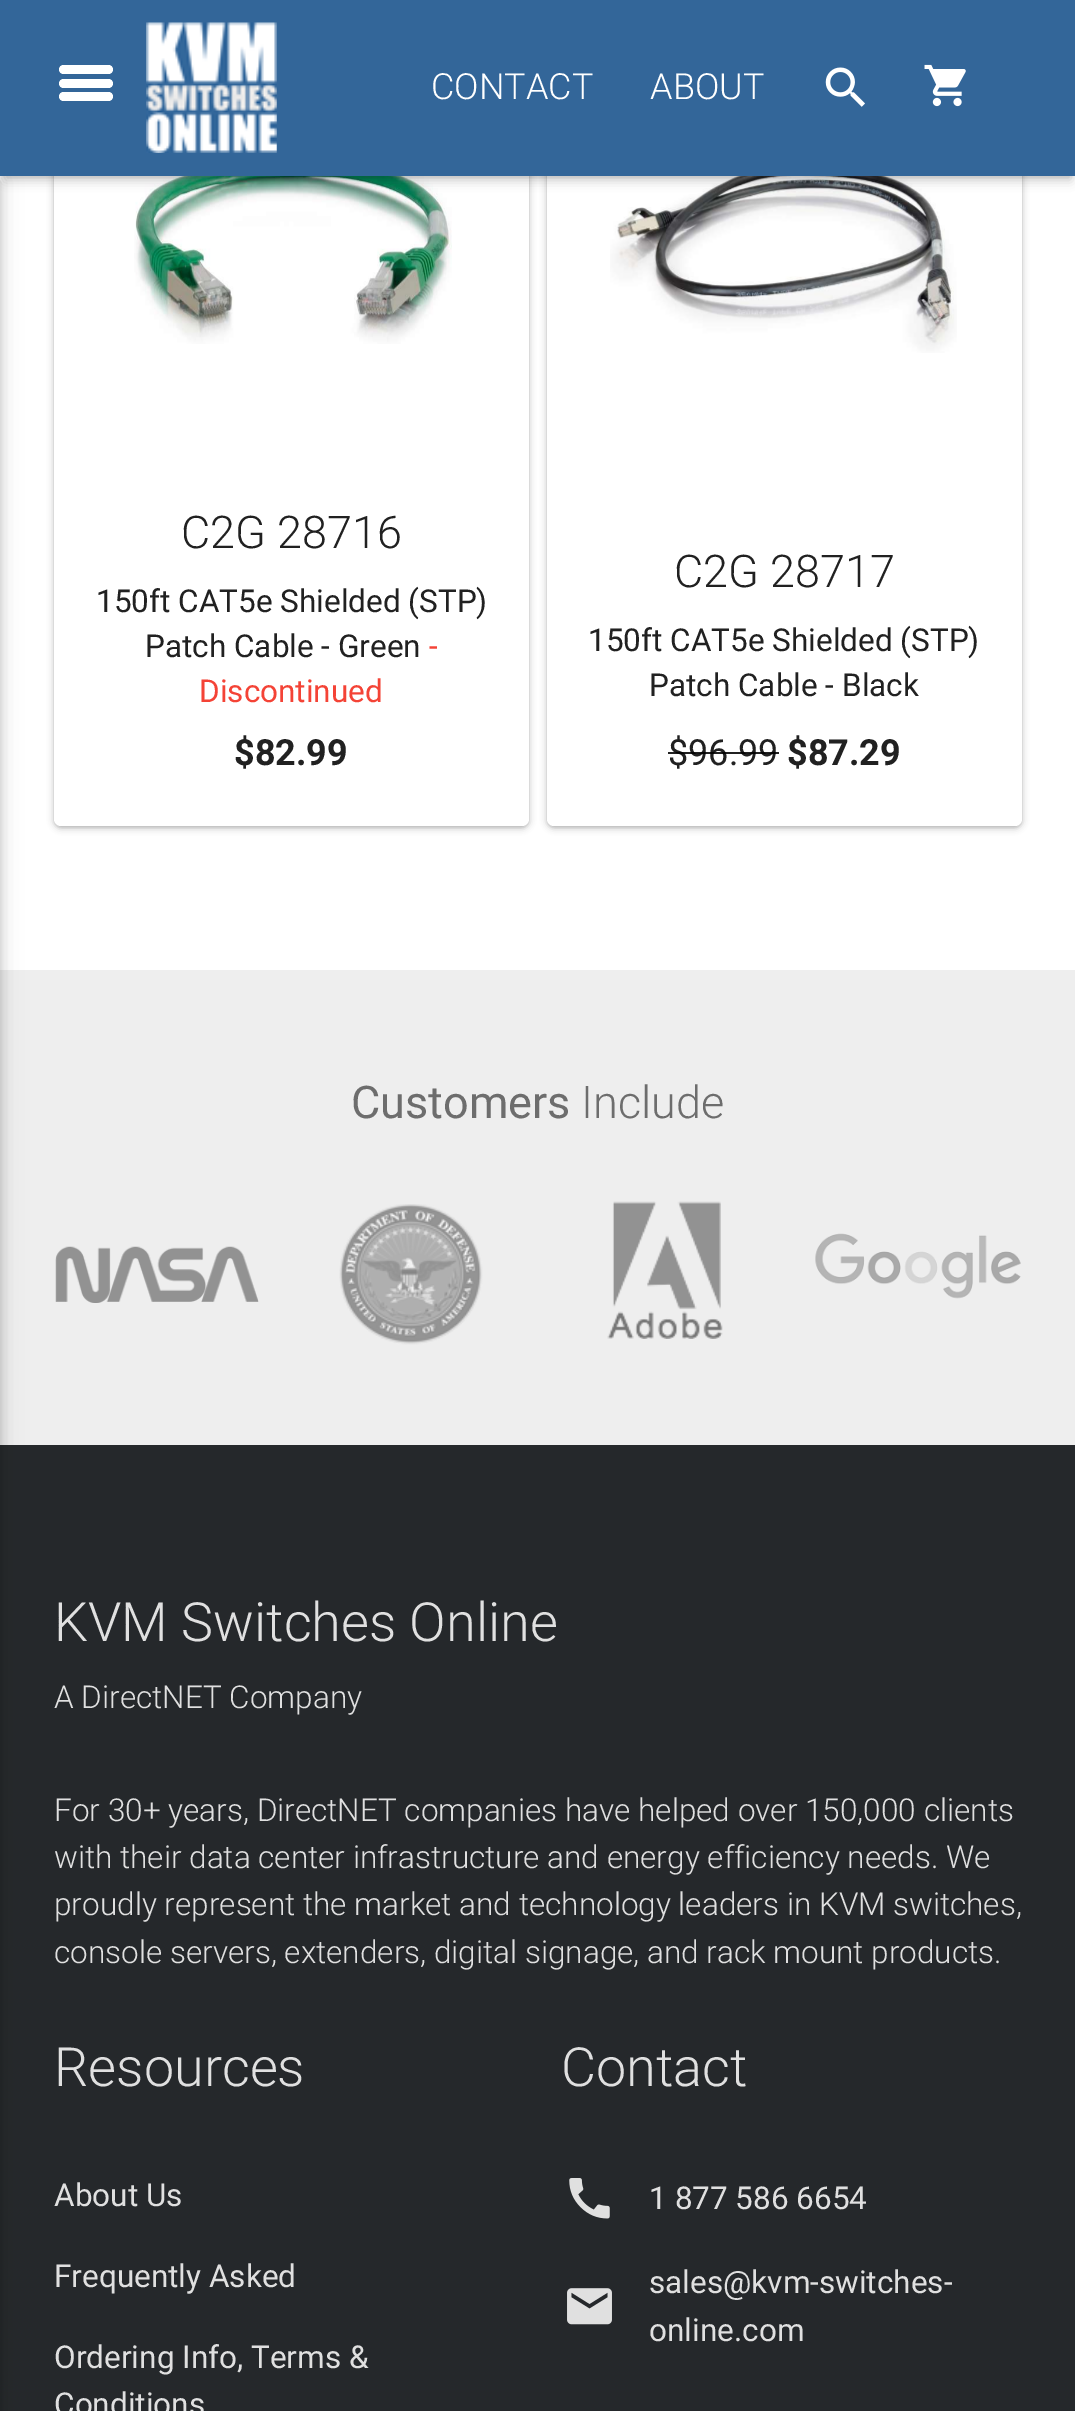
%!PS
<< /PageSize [1075 2411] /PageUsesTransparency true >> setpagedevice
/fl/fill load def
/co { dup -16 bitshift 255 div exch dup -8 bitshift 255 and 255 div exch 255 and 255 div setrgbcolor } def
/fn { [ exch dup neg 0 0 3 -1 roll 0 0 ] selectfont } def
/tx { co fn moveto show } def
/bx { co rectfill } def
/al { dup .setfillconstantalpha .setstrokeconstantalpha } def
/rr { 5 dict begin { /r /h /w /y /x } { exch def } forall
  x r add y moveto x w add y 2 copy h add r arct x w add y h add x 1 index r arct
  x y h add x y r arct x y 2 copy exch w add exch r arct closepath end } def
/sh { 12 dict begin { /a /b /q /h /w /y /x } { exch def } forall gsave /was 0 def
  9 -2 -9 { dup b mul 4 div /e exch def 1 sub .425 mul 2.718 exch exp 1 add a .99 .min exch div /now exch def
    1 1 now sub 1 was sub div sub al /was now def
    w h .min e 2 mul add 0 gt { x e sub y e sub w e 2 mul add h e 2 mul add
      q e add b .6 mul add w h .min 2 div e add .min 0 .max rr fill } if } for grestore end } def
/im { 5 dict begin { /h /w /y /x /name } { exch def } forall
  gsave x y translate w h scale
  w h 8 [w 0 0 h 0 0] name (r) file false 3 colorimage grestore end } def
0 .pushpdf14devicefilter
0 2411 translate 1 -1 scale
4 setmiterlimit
0 0 1075 2411 16#25282B bx
0 176 1075 794 16#FFFFFF bx
16#000000 co
54 34 475 794 7 3.5 .25 sh
54 34 475 794 7 1 .05 sh
16#FFFFFF co
54 32 475 794 7 rr fl
(media/4.raw) 134 176 318 168 im
16#000000 co
547 34 475 794 7 3.5 .25 sh
547 34 475 794 7 1 .05 sh
16#FFFFFF co
547 32 475 794 7 rr fl
(media/5.raw) 610 176 347 177 im
16#000000 co
2 7 1071 171 0 1 .05 sh
5 14 1066 166 0 5.5 .22 sh
0 970 1075 475 16#EEEEEE bx
16#000000 co
-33 180 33 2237 0 11 .12 sh
-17 180 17 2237 0 5.5 .16 sh
0 0 1075 176 16#336699 bx
16#FFFFFF co
59 79 54 9 4.5 rr fl
59 65 54 9 4.5 rr fl
59 92 54 9 4.5 rr fl
(media/1.raw) 146 22 131 131 im
(media/2.raw) 825 67 40 40 im
(media/3.raw) 924 64 42 43 im
(media/6.raw) 55 1246 204 57 im
(media/7.raw) 339 1204 144 141 im
(media/8.raw) 607 1201 116 138 im
(media/9.raw) 815 1233 206 66 im
(media/10.raw) 569 2178 41 41 im
(media/11.raw) 567 2288 45 37 im
(CONTACT) 431 99 /Roboto-Light 36 16#FFFFFF tx
(ABOUT) 650 99 /Roboto-Light 36 16#FFFFFF tx
(C2G 28716) 181 548 /Roboto-Light 45 16#212121 tx
(150ft CAT5e Shielded \(STP\)) 96 612 /Roboto-Regular 31.5 16#212121 tx
(Patch Cable - Green) 145 657 /Roboto-Regular 31.5 16#212121 tx
(-) 429 657 /Roboto-Regular 31.5 16#F44336 tx
(Discontinued) 199 702 /Roboto-Regular 31.5 16#F44336 tx
($82.99) 234 765 /Roboto-Bold 36 16#212121 tx
(C2G 28717) 674 587 /Roboto-Light 45 16#212121 tx
(150ft CAT5e Shielded \(STP\)) 588 651 /Roboto-Regular 31.5 16#212121 tx
(Patch Cable - Black) 649 696 /Roboto-Regular 31.5 16#212121 tx
($96.99) 668 765 /Roboto-Regular 36 16#212121 tx
0.87 al
668 752 111 2 16#000000 bx
1 al
($87.29) 787 765 /Roboto-Bold 36 16#212121 tx
(Customers) 351 1118 /Roboto-Regular 45 16#6D6D6D tx
(Include) 581 1118 /Roboto-Light 45 16#6D6D6D tx
(KVM Switches Online) 54 1641 /Roboto-Light 54 16#E0E0E0 tx
(A DirectNET Company) 54 1708 /Roboto-Light 31.5 16#E0E0E0 tx
(For 30+ years, DirectNET companies have helped over 150,000 clients) 54 1821 /Roboto-Light 31.5 16#E0E0E0 tx
(with their data center infrastructure and energy efficiency needs. We) 54 1868 /Roboto-Light 31.5 16#E0E0E0 tx
(proudly represent the market and technology leaders in KVM switches,) 54 1915 /Roboto-Light 31.5 16#E0E0E0 tx
(console servers, extenders, digital signage, and rack mount products.) 54 1963 /Roboto-Light 31.5 16#E0E0E0 tx
(Resources) 54 2086 /Roboto-Light 54 16#E0E0E0 tx
(About Us) 54 2206 /Roboto-Regular 31.5 16#E0E0E0 tx
(Frequently Asked) 54 2287 /Roboto-Regular 31.5 16#E0E0E0 tx
(Ordering Info, Terms &) 54 2368 /Roboto-Regular 31.5 16#E0E0E0 tx
(Conditions) 54 2415 /Roboto-Regular 31.5 16#E0E0E0 tx
(Contact) 561 2086 /Roboto-Light 54 16#E0E0E0 tx
(1 877 586 6654) 649 2209 /Roboto-Regular 31.5 16#E0E0E0 tx
(sales@kvm-switches-) 649 2293 /Roboto-Regular 31.5 16#E0E0E0 tx
(online.com) 649 2341 /Roboto-Regular 31.5 16#E0E0E0 tx
.poppdf14devicefilter showpage
